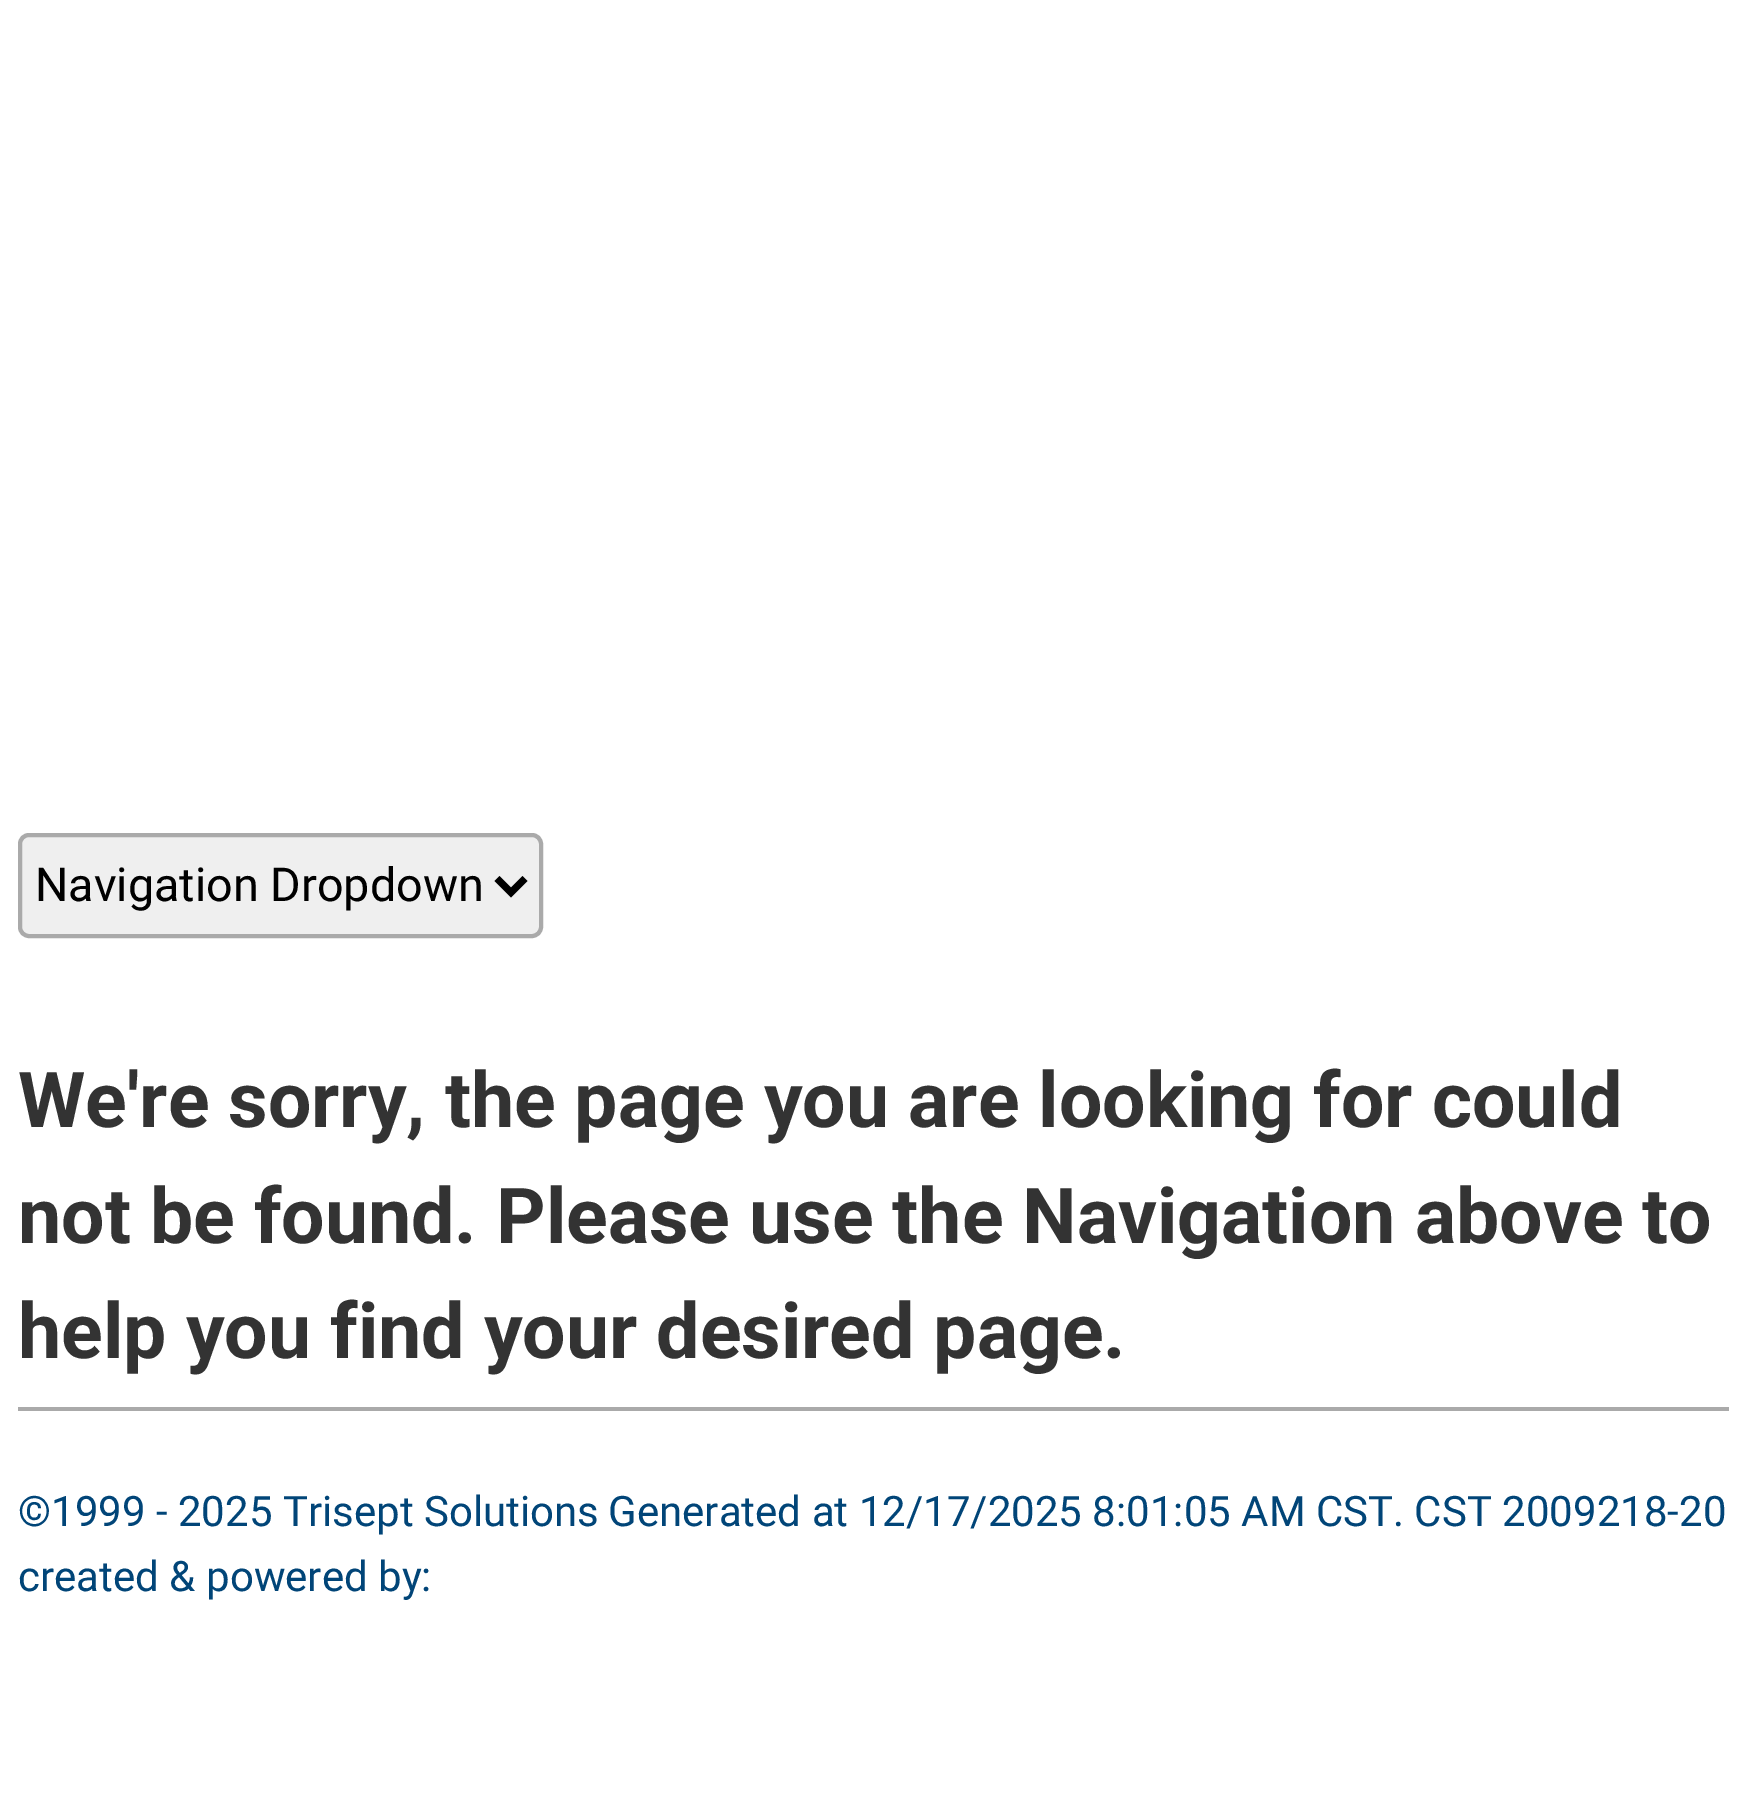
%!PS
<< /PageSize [1746 1806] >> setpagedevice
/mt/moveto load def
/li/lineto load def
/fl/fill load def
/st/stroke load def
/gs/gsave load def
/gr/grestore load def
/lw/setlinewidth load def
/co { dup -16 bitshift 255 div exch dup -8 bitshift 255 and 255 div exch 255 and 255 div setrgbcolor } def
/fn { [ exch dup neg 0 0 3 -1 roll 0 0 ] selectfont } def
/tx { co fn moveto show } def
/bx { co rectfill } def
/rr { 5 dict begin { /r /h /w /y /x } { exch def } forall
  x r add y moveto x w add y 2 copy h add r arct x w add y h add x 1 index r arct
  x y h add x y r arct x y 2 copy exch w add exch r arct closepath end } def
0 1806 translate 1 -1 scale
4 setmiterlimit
0 0 1746 1806 16#FFFFFF bx
16#EFEFEF co
20 835 521 101 9 rr gs fl gr
16#AAAAAA co
4 lw
st
16#000000 co
7 lw
497 878.5 mt 511 892.5 li 525 878.5 li st
18 1407 1711 4 16#AAAAAA bx
(Navigation Dropdown) 35 901 /Roboto-Regular 46.75 16#000000 tx
(We're sorry, the page you are looking for could) 18 1127 /Roboto-Bold 77 16#333333 tx
(not be found. Please use the Navigation above to) 18 1243 /Roboto-Bold 77 16#333333 tx
(help you find your desired page.) 18 1358 /Roboto-Bold 77 16#333333 tx
(©1999 - 2025 Trisept Solutions) 18 1526 /Roboto-Regular 42 16#014578 tx
(Generated at 12/17/2025 8:01:05 AM CST. CST 2009218-20) 608 1526 /Roboto-Regular 42 16#014578 tx
(created & powered by:) 18 1591 /Roboto-Regular 42 16#014578 tx
showpage
